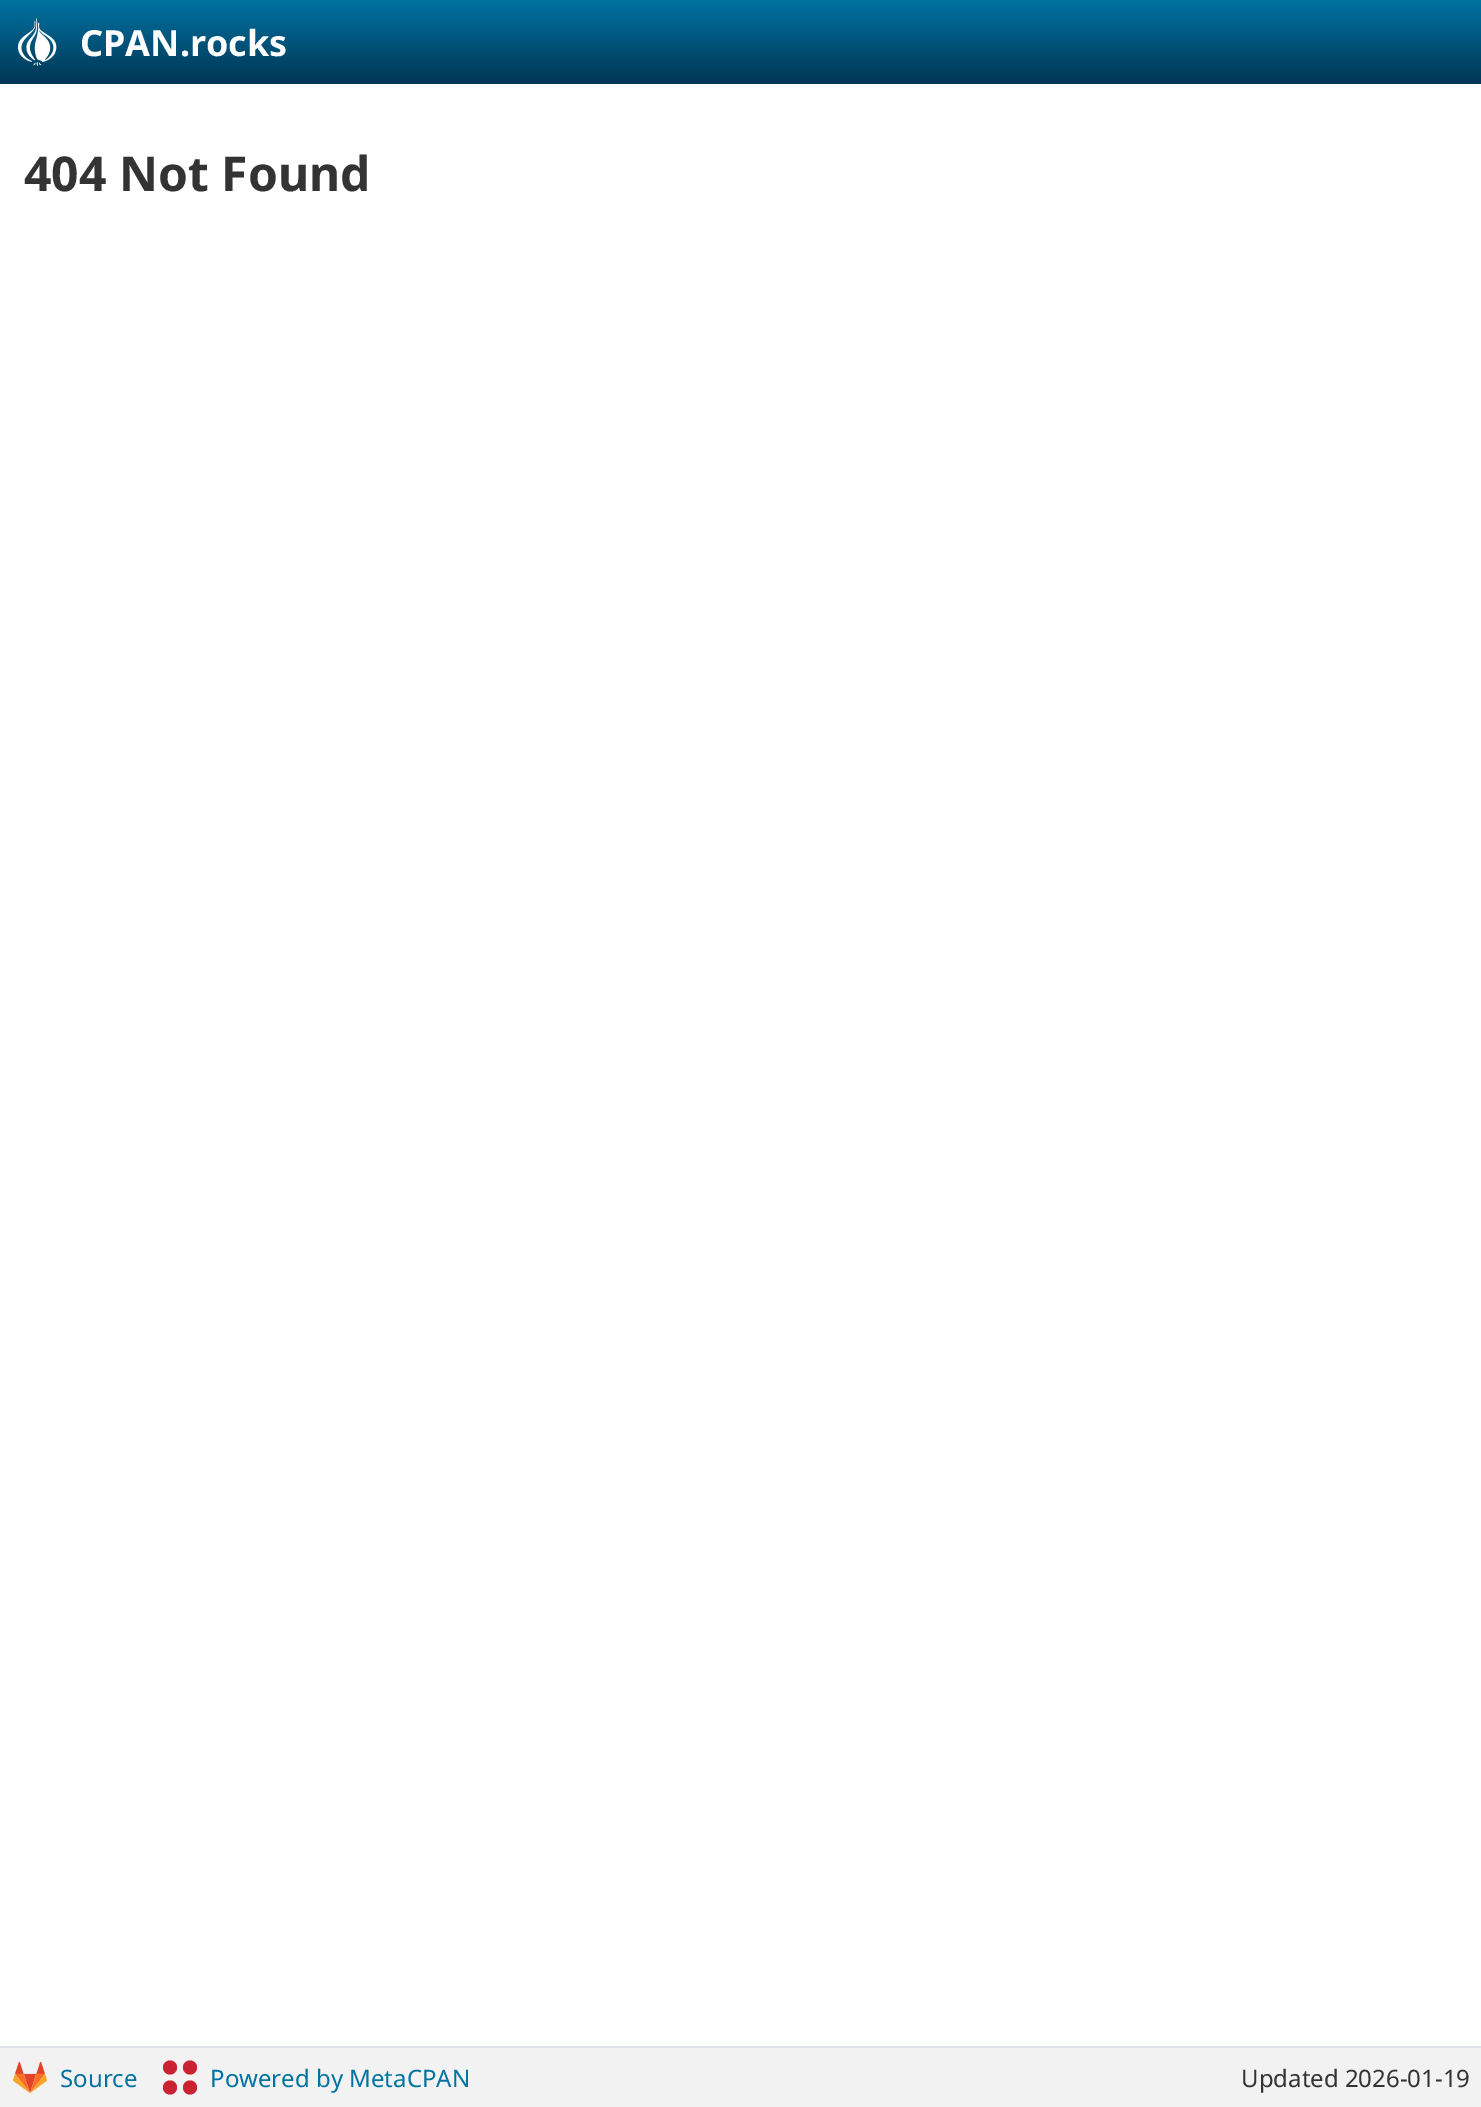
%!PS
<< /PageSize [1481 2107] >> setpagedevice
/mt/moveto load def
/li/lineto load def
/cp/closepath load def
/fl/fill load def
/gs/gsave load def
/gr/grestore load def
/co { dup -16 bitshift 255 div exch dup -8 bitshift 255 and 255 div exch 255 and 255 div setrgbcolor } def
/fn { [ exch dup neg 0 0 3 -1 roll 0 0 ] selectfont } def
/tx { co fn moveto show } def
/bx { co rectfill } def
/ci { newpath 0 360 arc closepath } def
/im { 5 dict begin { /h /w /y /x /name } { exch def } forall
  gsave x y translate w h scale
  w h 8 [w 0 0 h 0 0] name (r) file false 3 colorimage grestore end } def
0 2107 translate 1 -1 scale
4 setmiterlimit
0 0 1481 2107 16#FFFFFF bx
gs 0 0 mt 1481 0 li 1481 84 li 0 84 li cp clip newpath
<< /ShadingType 2 /ColorSpace /DeviceRGB /Coords [741 0 741 84] /Extend [true true] /Function << /FunctionType 2 /Domain [0 1] /C0 [0 .451 .631] /C1 [0 .208 .333] /N 1 >> >> shfill gr
(media/1.raw) 18 18 39 48 im
0 2048 1481 59 16#F2F2F2 bx
0 2046 1481 2 16#DEE2E6 bx
(media/2.raw) 13 2061 34 32 im
16#C82233 co
170 2067.5 7 ci fl
190 2067.5 7 ci fl
170 2087.5 7 ci fl
190 2087.5 7 ci fl
(CPAN.rocks) 80 56 /NotoSans-Bold 36 16#FFFFFF tx
(404 Not Found) 24 191 /NotoSans-Bold 48 16#333333 tx
(Source) 60 2087 /NotoSans-Regular 24 16#0073A1 tx
(Powered by MetaCPAN) 210 2087 /NotoSans-Regular 24 16#0073A1 tx
(Updated 2026-01-19) 1241 2087 /NotoSans-Regular 24 16#333333 tx
showpage
